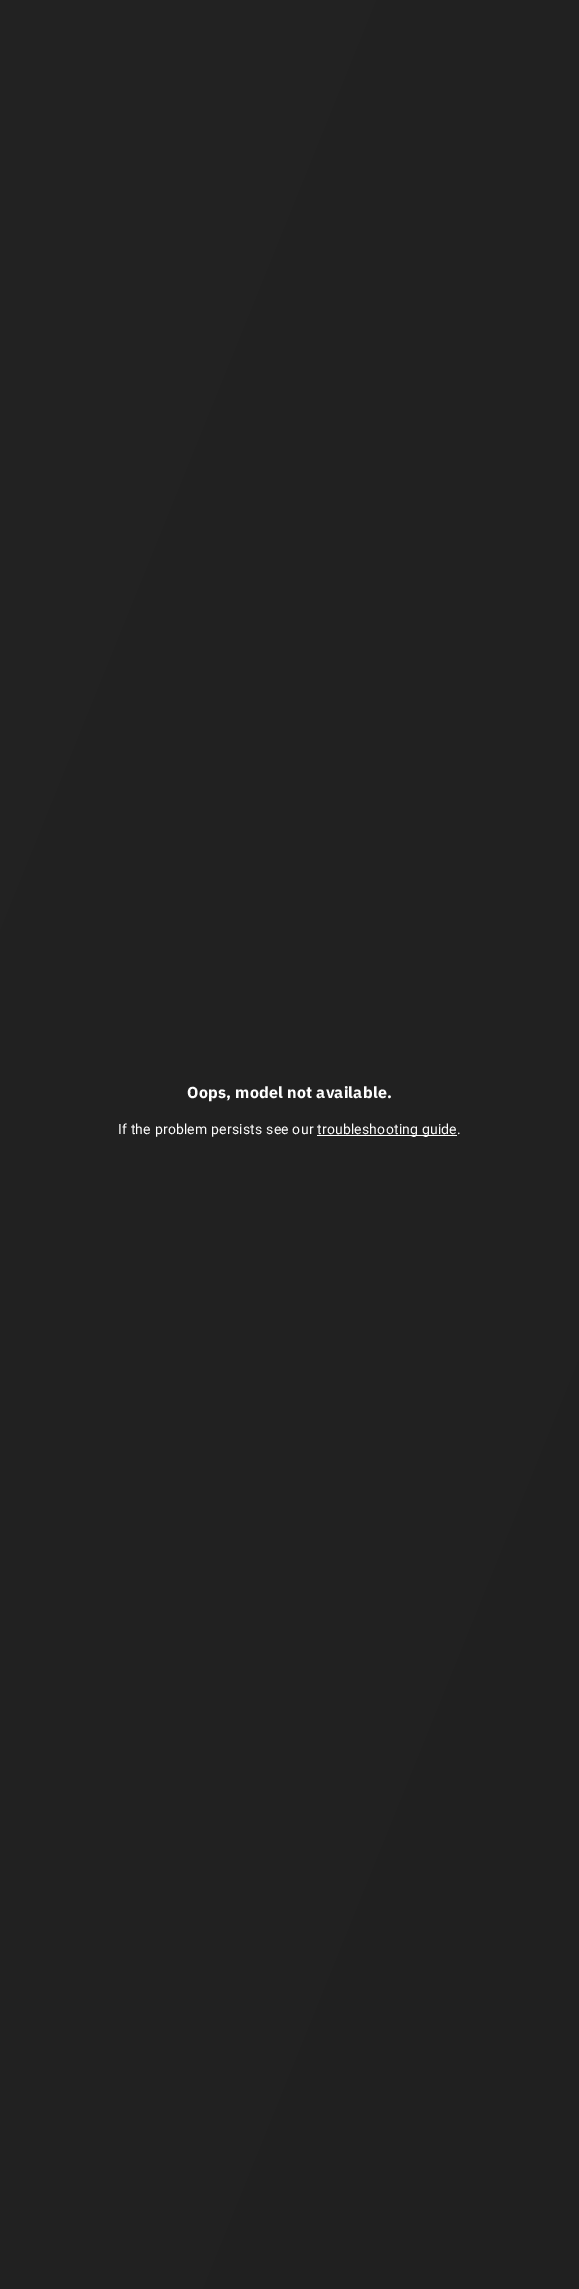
%!PS
<< /PageSize [579 2289] >> setpagedevice
/mt/moveto load def
/li/lineto load def
/cp/closepath load def
/gs/gsave load def
/gr/grestore load def
/co { dup -16 bitshift 255 div exch dup -8 bitshift 255 and 255 div exch 255 and 255 div setrgbcolor } def
/fn { [ exch dup neg 0 0 3 -1 roll 0 0 ] selectfont } def
/bx { co rectfill } def
0 2289 translate 1 -1 scale
4 setmiterlimit
0 0 579 2289 16#FFFFFF bx
gs 0 0 mt 579 0 li 579 2289 li 0 2289 li cp clip newpath
<< /ShadingType 2 /ColorSpace /DeviceRGB /Coords [-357 883 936 1406] /Extend [true true] /Function << /FunctionType 2 /Domain [0 1] /C0 [.133 .133 .133] /C1 [.125 .125 .125] /N 1 >> >> shfill gr
317 1135 140 1 16#FFFFFF bx
/IBMPlexSans-Bold 16 fn
187 1098 mt .2 0 (Oops, model not available.) ashow
/Roboto-Regular 14 fn
118 1134 mt .2 0 (If the problem persists see our) ashow
317 1134 mt .2 0 (troubleshooting guide.) ashow
showpage
